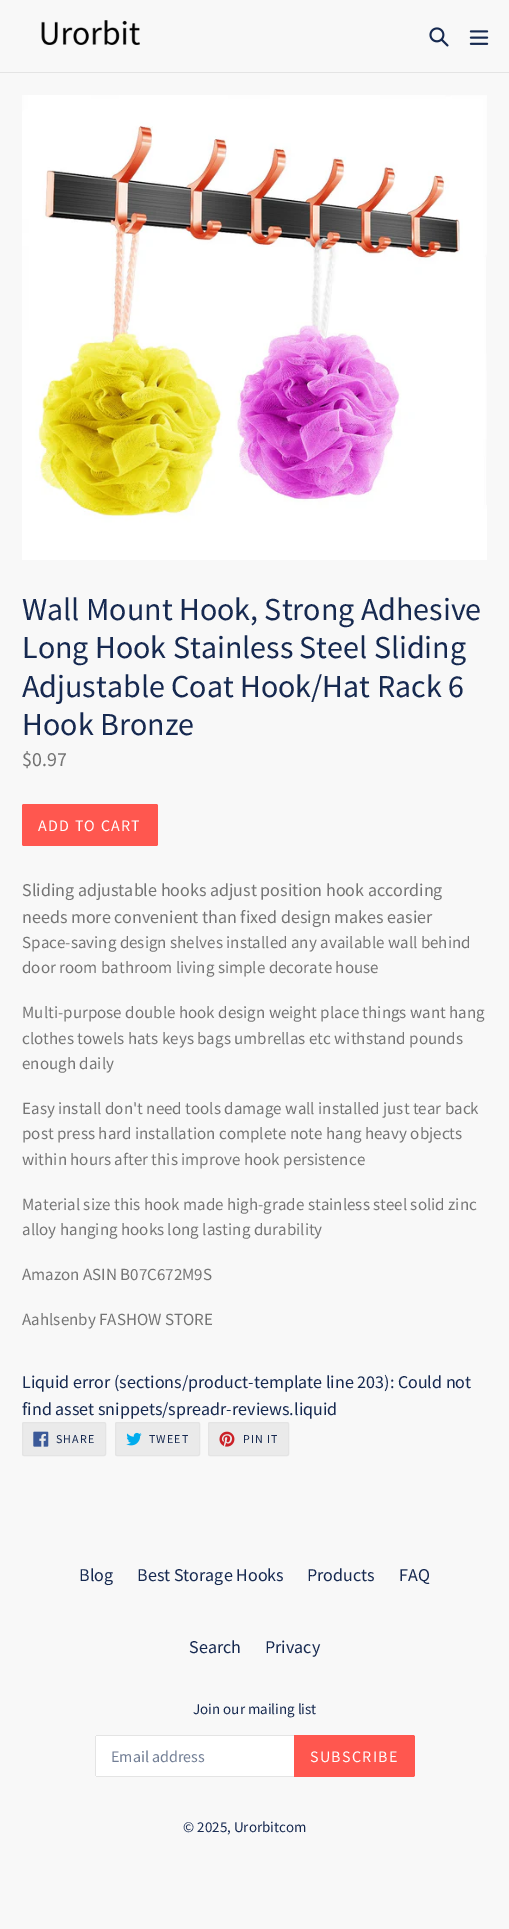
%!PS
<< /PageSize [509 1929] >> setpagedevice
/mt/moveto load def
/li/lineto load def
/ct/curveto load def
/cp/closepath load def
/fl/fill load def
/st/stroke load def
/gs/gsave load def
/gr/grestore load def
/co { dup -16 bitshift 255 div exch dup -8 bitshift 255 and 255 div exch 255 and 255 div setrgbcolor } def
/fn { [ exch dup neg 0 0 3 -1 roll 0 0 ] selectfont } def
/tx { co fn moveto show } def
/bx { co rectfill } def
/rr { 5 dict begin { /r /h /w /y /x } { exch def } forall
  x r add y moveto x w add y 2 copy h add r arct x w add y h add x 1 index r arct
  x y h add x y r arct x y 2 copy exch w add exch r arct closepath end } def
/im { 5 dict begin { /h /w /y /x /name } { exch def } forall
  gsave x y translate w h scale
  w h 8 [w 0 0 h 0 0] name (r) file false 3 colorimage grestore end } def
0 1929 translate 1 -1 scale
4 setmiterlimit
0 0 509 1929 16#F8F8F8 bx
0 72 509 1 16#E4E4E4 bx
(media/1.raw) 41 20 99 25 im
(media/2.raw) 429 27 20 20 im
(media/3.raw) 469 30 20 15 im
(media/4.raw) 22 95 465 465 im
16#FF574F co
22 804 136 42 2 rr fl
16#EAEAEA co
22.5 1422.5 83 33 1.5 rr gs fl gr
16#E4E4E4 co
st
(media/5.raw) 33 1431 16 16 im
16#EAEAEA co
115.5 1422.5 84 33 1.5 rr gs fl gr
16#E4E4E4 co
st
(media/6.raw) 126 1432 16 14 im
16#EAEAEA co
208.5 1422.5 80 33 1.5 rr gs fl gr
16#E4E4E4 co
st
(media/7.raw) 219 1431 16 16 im
16#FFFFFF co
97 1735 mt 294 1735 li 294 1777 li 97 1777 li 96 1777 95 1776 95 1775 ct 95 1737 li 95 1736 96 1735 97 1735 ct cp fl
96 1735 198 1 16#E4E4E4 bx
96 1776 198 1 16#E4E4E4 bx
95 1736 1 40 16#E4E4E4 bx
16#FF574F co
294 1735 mt 413 1735 li 414 1735 415 1736 415 1737 ct 415 1775 li 415 1776 414 1777 413 1777 ct 294 1777 li cp fl
(Wall Mount Hook, Strong Adhesive) 22 620 /SourceSansPro-Regular 32 16#162950 tx
(Long Hook Stainless Steel Sliding) 22 658 /SourceSansPro-Regular 32 16#162950 tx
(Adjustable Coat Hook/Hat Rack 6) 22 697 /SourceSansPro-Regular 32 16#162950 tx
(Hook Bronze) 22 735 /SourceSansPro-Regular 32 16#162950 tx
($0.97) 22 766 /SourceSansPro-Regular 20 16#757575 tx
/SourceSansPro-Regular 16 fn
16#FFFFFF co
38 831 mt 1.25 0 (ADD TO CART) ashow
(Sliding adjustable hooks adjust position hook according) 22 896 /SourceSansPro-Regular 18 16#757575 tx
(needs more convenient than fixed design makes easier) 22 923 /SourceSansPro-Regular 18 16#757575 tx
(Space-saving design shelves installed any available wall behind) 22 948 /SourceSansPro-Regular 17 16#757575 tx
(door room bathroom living simple decorate house) 22 973 /SourceSansPro-Regular 17 16#757575 tx
(Multi-purpose double hook design weight place things want hang) 22 1018 /SourceSansPro-Regular 17 16#757575 tx
(clothes towels hats keys bags umbrellas etc withstand pounds) 22 1044 /SourceSansPro-Regular 17 16#757575 tx
(enough daily) 22 1069 /SourceSansPro-Regular 17 16#757575 tx
(Easy install don't need tools damage wall installed just tear back) 22 1114 /SourceSansPro-Regular 17 16#757575 tx
(post press hard installation complete note hang heavy objects) 22 1139 /SourceSansPro-Regular 17 16#757575 tx
(within hours after this improve hook persistence) 22 1165 /SourceSansPro-Regular 17 16#757575 tx
(Material size this hook made high-grade stainless steel solid zinc) 22 1210 /SourceSansPro-Regular 17 16#757575 tx
(alloy hanging hooks long lasting durability) 22 1235 /SourceSansPro-Regular 17 16#757575 tx
(Amazon ASIN B07C672M9S) 22 1280 /SourceSansPro-Regular 17 16#757575 tx
(Aahlsenby FASHOW STORE) 22 1325 /SourceSansPro-Regular 17 16#757575 tx
(Liquid error \(sections/product-template line 203\): Could not) 22 1388 /SourceSansPro-Regular 18 16#162950 tx
(find asset snippets/spreadr-reviews.liquid) 22 1415 /SourceSansPro-Regular 18 16#162950 tx
/SourceSansPro-Regular 12 fn
56 1443 mt 1 0 (SHARE) ashow
149 1443 mt 1 0 (TWEET) ashow
243 1443 mt 1 0 (PIN IT) ashow
(Blog) 79 1581 /SourceSansPro-Regular 18 16#162950 tx
(Best Storage Hooks) 137 1581 /SourceSansPro-Regular 18 16#162950 tx
(Products) 307 1581 /SourceSansPro-Regular 18 16#162950 tx
(FAQ) 399 1581 /SourceSansPro-Regular 18 16#162950 tx
(Search) 189 1653 /SourceSansPro-Regular 18 16#162950 tx
(Privacy) 265 1653 /SourceSansPro-Regular 18 16#162950 tx
(Join our mailing list) 193 1714 /SourceSansPro-Regular 15 16#162950 tx
(Email address) 111 1762 /SourceSansPro-Regular 16 16#737F96 tx
16#FFFFFF co
310 1762 mt 1.25 0 (SUBSCRIBE) ashow
(© 2025, Urorbitcom) 183 1832 /SourceSansPro-Regular 15 16#162950 tx
showpage
